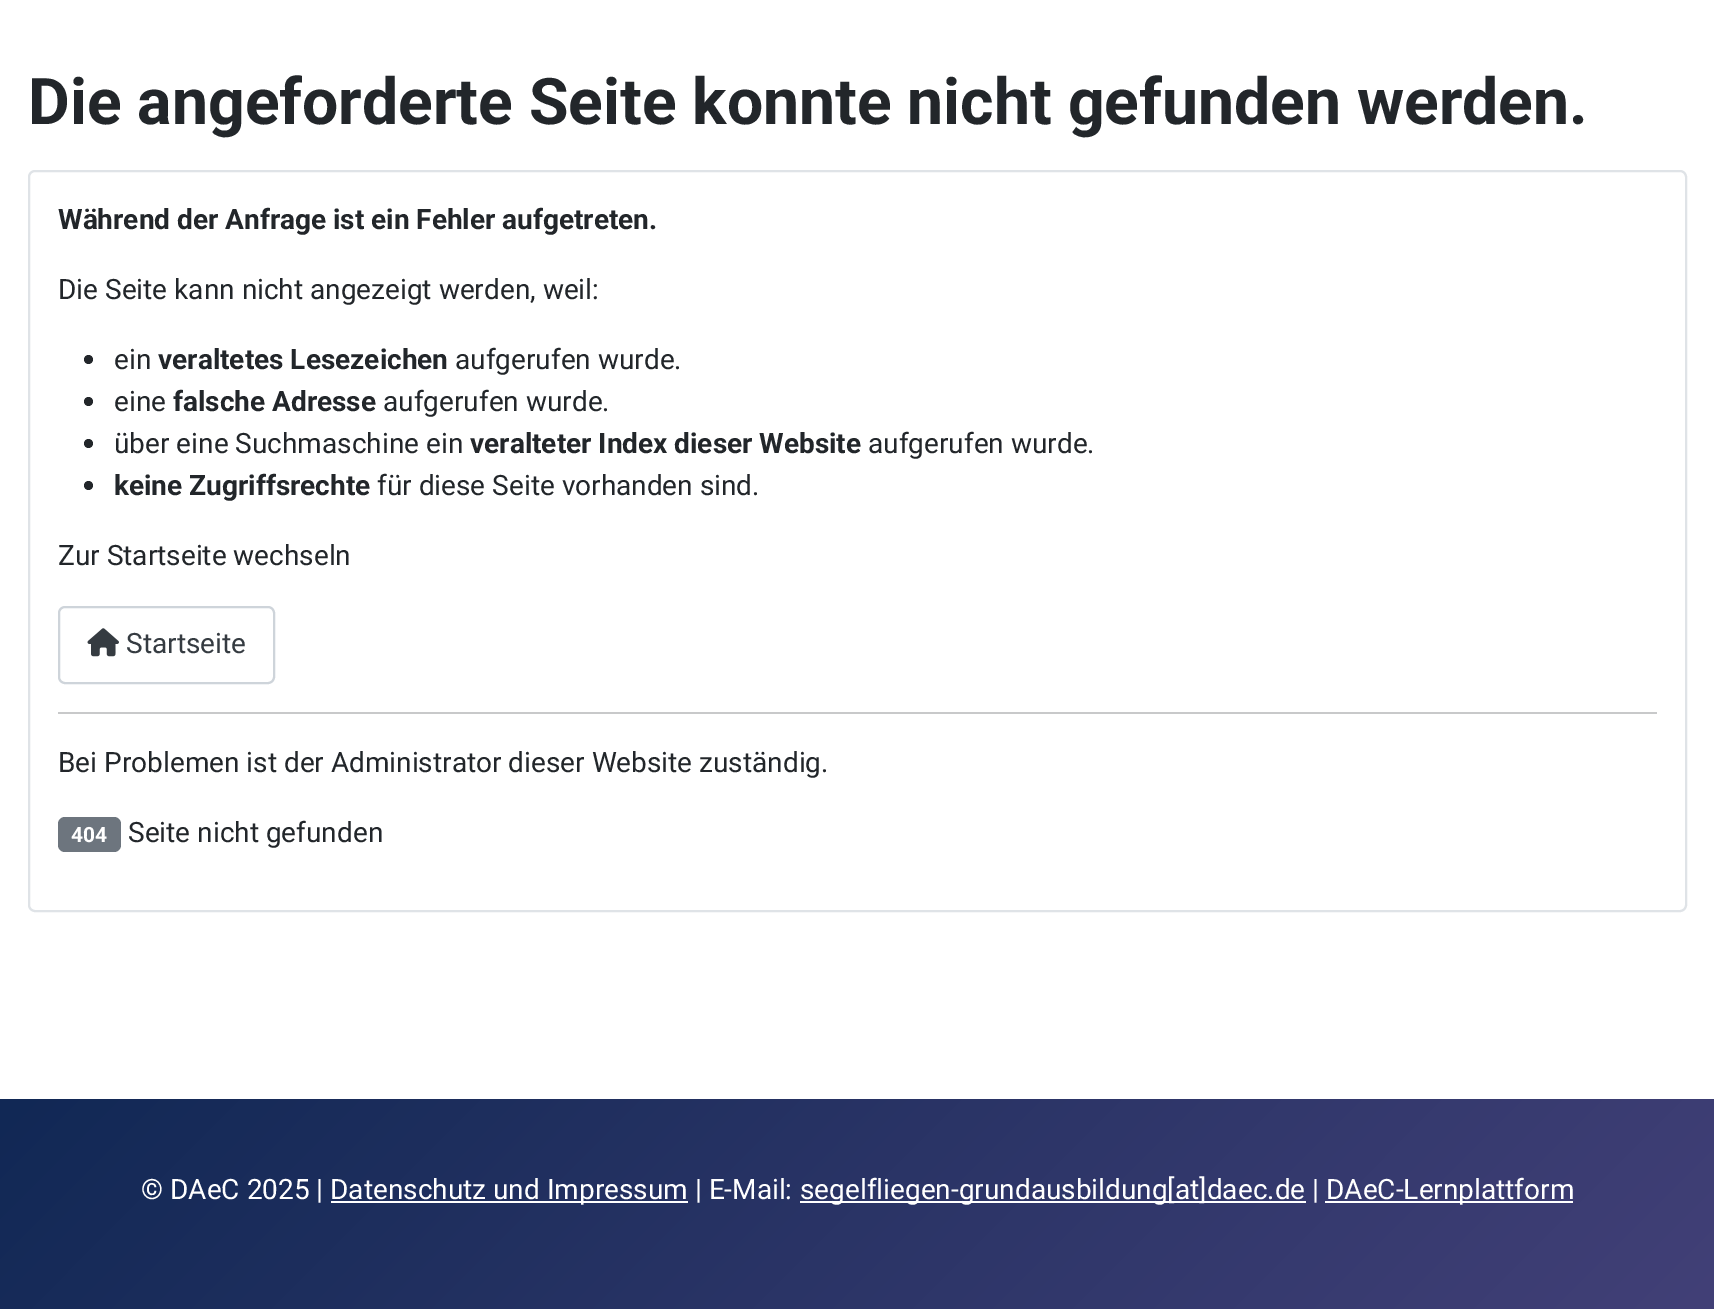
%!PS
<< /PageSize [1714 1309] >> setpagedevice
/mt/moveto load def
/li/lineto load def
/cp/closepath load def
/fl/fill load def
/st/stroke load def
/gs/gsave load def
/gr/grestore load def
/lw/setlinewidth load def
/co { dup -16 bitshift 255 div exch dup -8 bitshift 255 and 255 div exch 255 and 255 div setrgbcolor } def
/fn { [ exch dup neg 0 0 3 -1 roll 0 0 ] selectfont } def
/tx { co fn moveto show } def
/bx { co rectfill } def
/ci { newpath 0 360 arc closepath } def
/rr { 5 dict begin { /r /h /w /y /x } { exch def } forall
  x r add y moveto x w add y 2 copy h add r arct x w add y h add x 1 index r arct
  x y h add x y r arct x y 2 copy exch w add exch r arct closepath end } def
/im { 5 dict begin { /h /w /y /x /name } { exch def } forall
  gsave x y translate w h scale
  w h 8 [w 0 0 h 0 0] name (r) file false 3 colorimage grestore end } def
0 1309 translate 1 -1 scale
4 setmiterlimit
0 0 1714 1309 16#FFFFFF bx
16#DFE3E7 co
2 lw
29 171 1657 740 6 rr st
16#22262A co
88.5 359.5 4.5 ci fl
88.5 401.5 4.5 ci fl
88.5 443.5 4.5 ci fl
88.5 485.5 4.5 ci fl
16#CED4DA co
59 607 215 76 6 rr st
(media/1.raw) 87 628 32 29 im
58 712 1599 2 16#C8C9CA bx
16#6D757E co
58 817 63 35 7 rr fl
gs 0 1099 mt 1714 1099 li 1714 1309 li 0 1309 li cp clip newpath
<< /ShadingType 2 /ColorSpace /DeviceRGB /Coords [376 723 1339 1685] /Extend [true true] /Function << /FunctionType 2 /Domain [0 1] /C0 [.067 .157 .333] /C1 [.259 .251 .467] /N 1 >> >> shfill gr
331 1201 357 2 16#FFFFFF bx
800 1201 506 2 16#FFFFFF bx
1325 1201 248 2 16#FFFFFF bx
(Die angeforderte Seite konnte nicht gefunden werden.) 28 124 /Roboto-Bold 64.25 16#22262A tx
(Während der Anfrage ist ein Fehler aufgetreten.) 58 229 /Roboto-Bold 28 16#22262A tx
(Die Seite kann nicht angezeigt werden, weil:) 58 299 /Roboto-Regular 28 16#22262A tx
(ein) 114 369 /Roboto-Regular 28 16#22262A tx
(veraltetes Lesezeichen) 158 369 /Roboto-Bold 28 16#22262A tx
(aufgerufen wurde.) 455 369 /Roboto-Regular 28 16#22262A tx
(eine) 114 411 /Roboto-Regular 28 16#22262A tx
(falsche Adresse) 173 411 /Roboto-Bold 28 16#22262A tx
(aufgerufen wurde.) 383 411 /Roboto-Regular 28 16#22262A tx
(über eine Suchmaschine ein) 114 453 /Roboto-Regular 28 16#22262A tx
(veralteter Index dieser Website) 470 453 /Roboto-Bold 28 16#22262A tx
(aufgerufen wurde.) 868 453 /Roboto-Regular 28 16#22262A tx
(keine Zugriffsrechte) 114 495 /Roboto-Bold 28 16#22262A tx
(für diese Seite vorhanden sind.) 377 495 /Roboto-Regular 28 16#22262A tx
(Zur Startseite wechseln) 58 565 /Roboto-Regular 28 16#22262A tx
(Startseite) 126 653 /Roboto-Regular 28 16#353B41 tx
(Bei Problemen ist der Administrator dieser Website zuständig.) 58 772 /Roboto-Regular 28 16#22262A tx
(404) 71 842 /Roboto-Bold 21 16#FFFFFF tx
(Seite nicht gefunden) 128 842 /Roboto-Regular 28 16#22262A tx
(© DAeC 2025 |) 141 1199 /Roboto-Regular 28 16#FFFFFF tx
(Datenschutz und Impressum | E-Mail:) 330 1199 /Roboto-Regular 28 16#FFFFFF tx
(segelfliegen-grundausbildung[at]daec.de |) 800 1199 /Roboto-Regular 28 16#FFFFFF tx
(DAeC-Lernplattform) 1326 1199 /Roboto-Regular 28 16#FFFFFF tx
showpage
